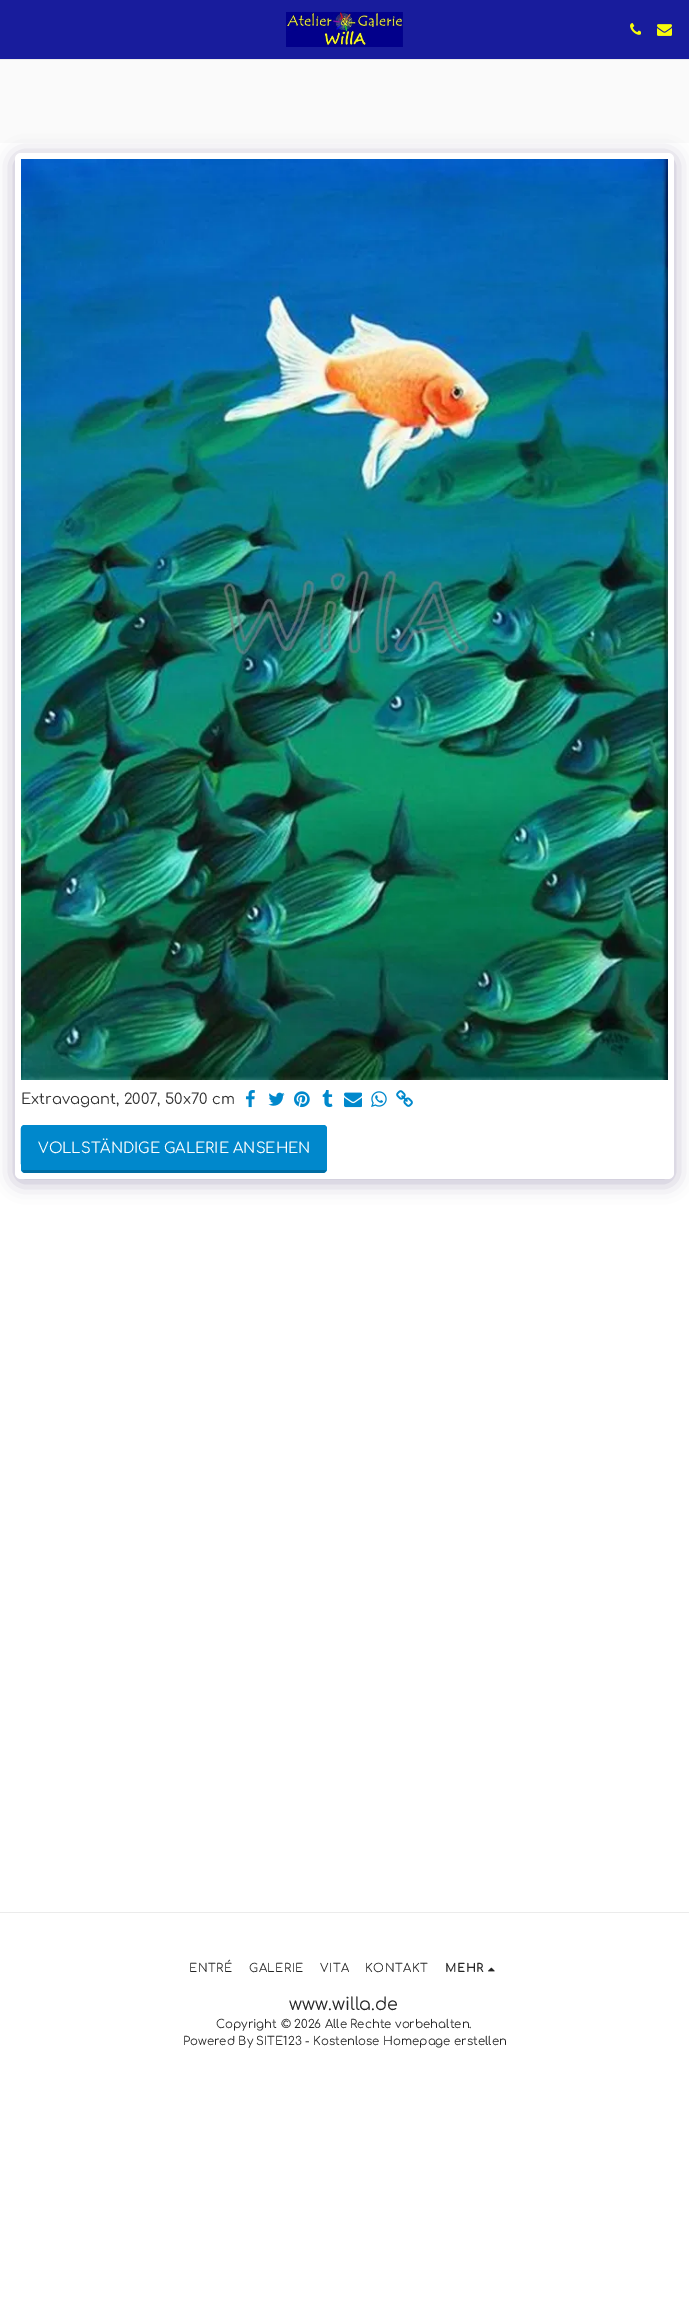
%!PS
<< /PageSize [689 2315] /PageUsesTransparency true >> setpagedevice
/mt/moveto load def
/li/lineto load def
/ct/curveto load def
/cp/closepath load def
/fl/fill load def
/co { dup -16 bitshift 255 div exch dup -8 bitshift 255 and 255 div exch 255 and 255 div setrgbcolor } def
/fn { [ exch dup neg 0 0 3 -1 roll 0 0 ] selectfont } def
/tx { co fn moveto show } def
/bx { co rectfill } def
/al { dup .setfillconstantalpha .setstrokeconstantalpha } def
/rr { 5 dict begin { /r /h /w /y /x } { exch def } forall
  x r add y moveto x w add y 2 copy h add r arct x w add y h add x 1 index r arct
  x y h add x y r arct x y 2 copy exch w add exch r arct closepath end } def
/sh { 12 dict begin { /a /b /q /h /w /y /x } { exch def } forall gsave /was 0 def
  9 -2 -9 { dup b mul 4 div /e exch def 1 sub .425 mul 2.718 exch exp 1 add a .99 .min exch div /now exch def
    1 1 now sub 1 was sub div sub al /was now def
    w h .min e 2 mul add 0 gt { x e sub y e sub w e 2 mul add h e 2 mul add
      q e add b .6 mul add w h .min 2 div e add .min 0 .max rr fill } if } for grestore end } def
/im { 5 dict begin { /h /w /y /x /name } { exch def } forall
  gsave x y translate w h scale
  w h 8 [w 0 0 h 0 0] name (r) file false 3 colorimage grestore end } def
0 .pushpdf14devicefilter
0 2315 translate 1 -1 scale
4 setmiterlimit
0 0 689 2315 16#FFFFFF bx
0 0 689 59 16#181C9C bx
0 59 689 1 16#EBEBEB bx
(media/1.raw) 286 12 117 35 im
(media/2.raw) 630 23 11 12 im
(media/3.raw) 657 24 15 12 im
0 60 689 83 16#FAFAFA bx
16#4D3F7A co
15 156 659 1026 6 10 .4 sh
16#FFFFFF co
15 153 659 1026 6 rr fl
(media/4.raw) 21 159 647 921 im
(media/5.raw) 245 1090 10 18 im
(media/6.raw) 268 1092 17 14 im
(media/7.raw) 294 1091 16 17 im
(media/8.raw) 322 1090 11 18 im
(media/9.raw) 344 1092 18 16 im
(media/10.raw) 371 1091 16 16 im
(media/11.raw) 396 1090 17 17 im
16#0088CC co
21 1125 306 48 4 rr fl
24 1125 mt 22 1126 li 23 1127 li 24 1126 li 324 1126 li 325 1127 li 326 1126 li 324 1125 li cp fl
327 1170 mt 327 1128 li 326 1126 li 325 1127 li 328 1129 324 1165 326 1171 ct cp fl
0.2 al
16#000000 co
24 1173 mt 324 1173 li 326 1171 li 326 1170 li 22 1170 li 22 1171 li cp fl
1 al
16#0088CC co
21 1128 mt 21 1133 20 1169 22 1171 ct 24 1165 20 1129 23 1127 ct 22 1126 li cp fl
0 1912 689 1 16#EBEBEB bx
(media/12.raw) 488 1967 7 5 im
(Extravagant, 2007, 50x70 cm) 21 1104 /Comfortaa-Regular 14.75 16#333333 tx
(VOLLSTÄNDIGE GALERIE ANSEHEN) 38 1153 /Comfortaa-Regular 14.75 16#FFFFFF tx
/Comfortaa-Regular 11.75 fn
16#252525 co
189 1972 mt .5 0 (ENTRÉ) ashow
249 1972 mt .5 0 (GALERIE) ashow
320 1972 mt .5 0 (VITA) ashow
365 1972 mt .5 0 (KONTAKT) ashow
/Comfortaa-Bold 11.75 fn
445 1972 mt .5 0 (MEHR) ashow
(www.willa.de) 289 2010 /Comfortaa-Regular 17.5 16#252525 tx
(Copyright © 2026 Alle Rechte vorbehalten.) 216 2028 /Comfortaa-Regular 11.75 16#252525 tx
(Powered By SITE123 - Kostenlose Homepage erstellen) 183 2045 /Comfortaa-Regular 11.75 16#252525 tx
.poppdf14devicefilter showpage
